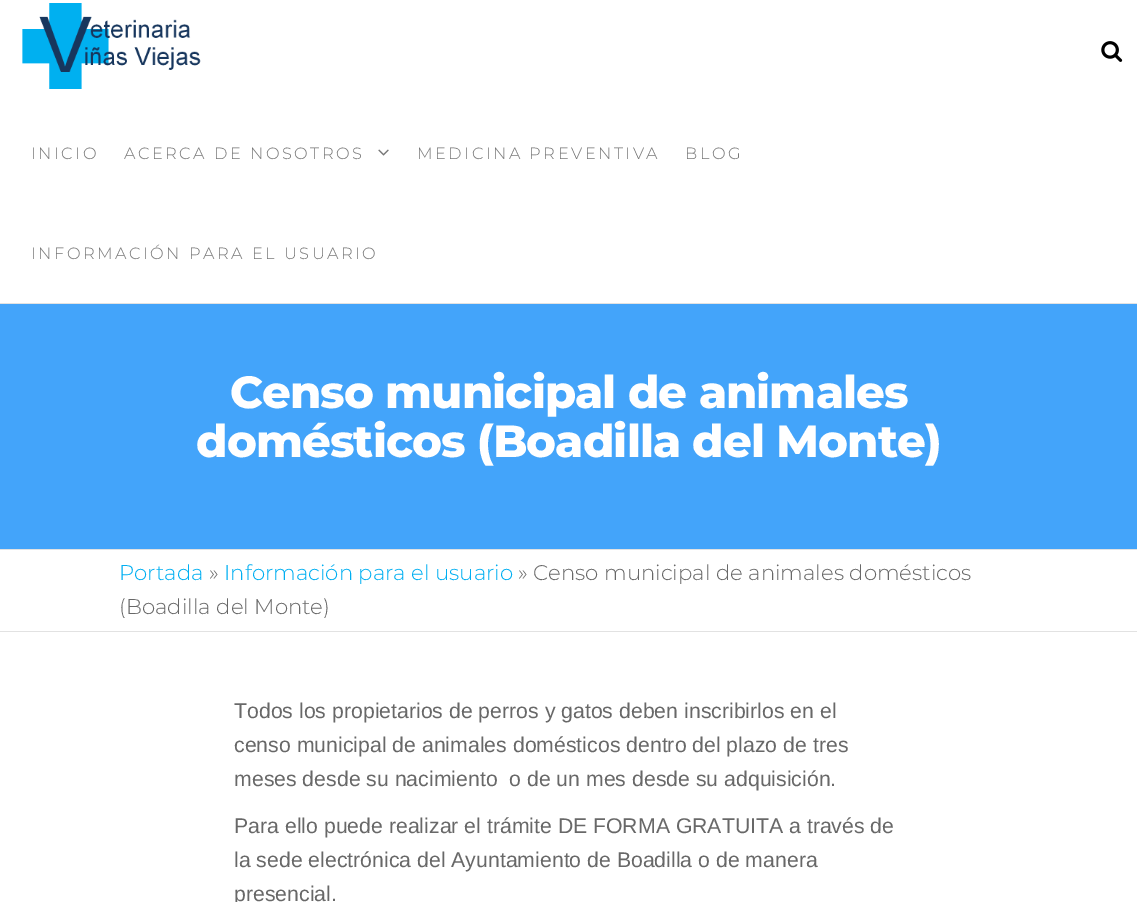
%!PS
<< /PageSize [1137 902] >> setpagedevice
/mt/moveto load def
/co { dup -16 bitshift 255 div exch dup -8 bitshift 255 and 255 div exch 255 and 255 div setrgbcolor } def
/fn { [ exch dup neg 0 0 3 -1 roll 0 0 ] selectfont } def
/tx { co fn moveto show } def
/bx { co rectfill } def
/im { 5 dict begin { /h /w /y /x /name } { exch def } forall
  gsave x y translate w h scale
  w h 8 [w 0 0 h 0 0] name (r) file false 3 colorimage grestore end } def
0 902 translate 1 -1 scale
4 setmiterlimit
0 0 1137 902 16#FFFFFF bx
0 303 1137 1 16#E2E2E2 bx
(media/1.raw) 22 3 179 86 im
(media/2.raw) 1101 41 22 21 im
(media/3.raw) 378 149 11 7 im
0 549 1137 1 16#E2E2E2 bx
0 304 1137 245 16#43A4FA bx
0 631 1137 1 16#E2E2E2 bx
/Montserrat-Light 16.25 fn
16#777777 co
31 159 mt 2.5 0 (INICIO) ashow
124 159 mt 2.5 0 (ACERCA DE NOSOTROS) ashow
417 159 mt 2.5 0 (MEDICINA PREVENTIVA) ashow
685 159 mt 2.5 0 (BLOG) ashow
31 259 mt 2.5 0 (INFORMACIÓN PARA EL USUARIO) ashow
/Montserrat-ExtraBold 45 fn
16#FFFFFF co
230 408 mt -.9 0 (Censo municipal de animales) ashow
196 457 mt -.9 0 (domésticos \(Boadilla del Monte\)) ashow
(Portada) 119 580 /Montserrat-Light 21.25 16#00AFF2 tx
(») 209 580 /Montserrat-Light 21.25 16#686868 tx
(Información para el usuario) 224 580 /Montserrat-Light 21.25 16#00AFF2 tx
(» Censo municipal de animales domésticos) 518 580 /Montserrat-Light 21.25 16#686868 tx
(\(Boadilla del Monte\)) 119 614 /Montserrat-Light 21.25 16#686868 tx
(Todos los propietarios de perros y gatos deben inscribirlos en el) 234 718 /LiberationSans-Regular 21.25 16#686868 tx
(censo municipal de animales domésticos dentro del plazo de tres) 234 752 /LiberationSans-Regular 21.25 16#686868 tx
(meses desde su nacimiento  o de un mes desde su adquisición.) 234 786 /LiberationSans-Regular 21.25 16#686868 tx
(Para ello puede realizar el trámite DE FORMA GRATUITA a través de) 234 833 /LiberationSans-Regular 21.25 16#686868 tx
(la sede electrónica del Ayuntamiento de Boadilla o de manera) 234 867 /LiberationSans-Regular 21.25 16#686868 tx
(presencial.) 234 901 /LiberationSans-Regular 21.25 16#686868 tx
showpage
